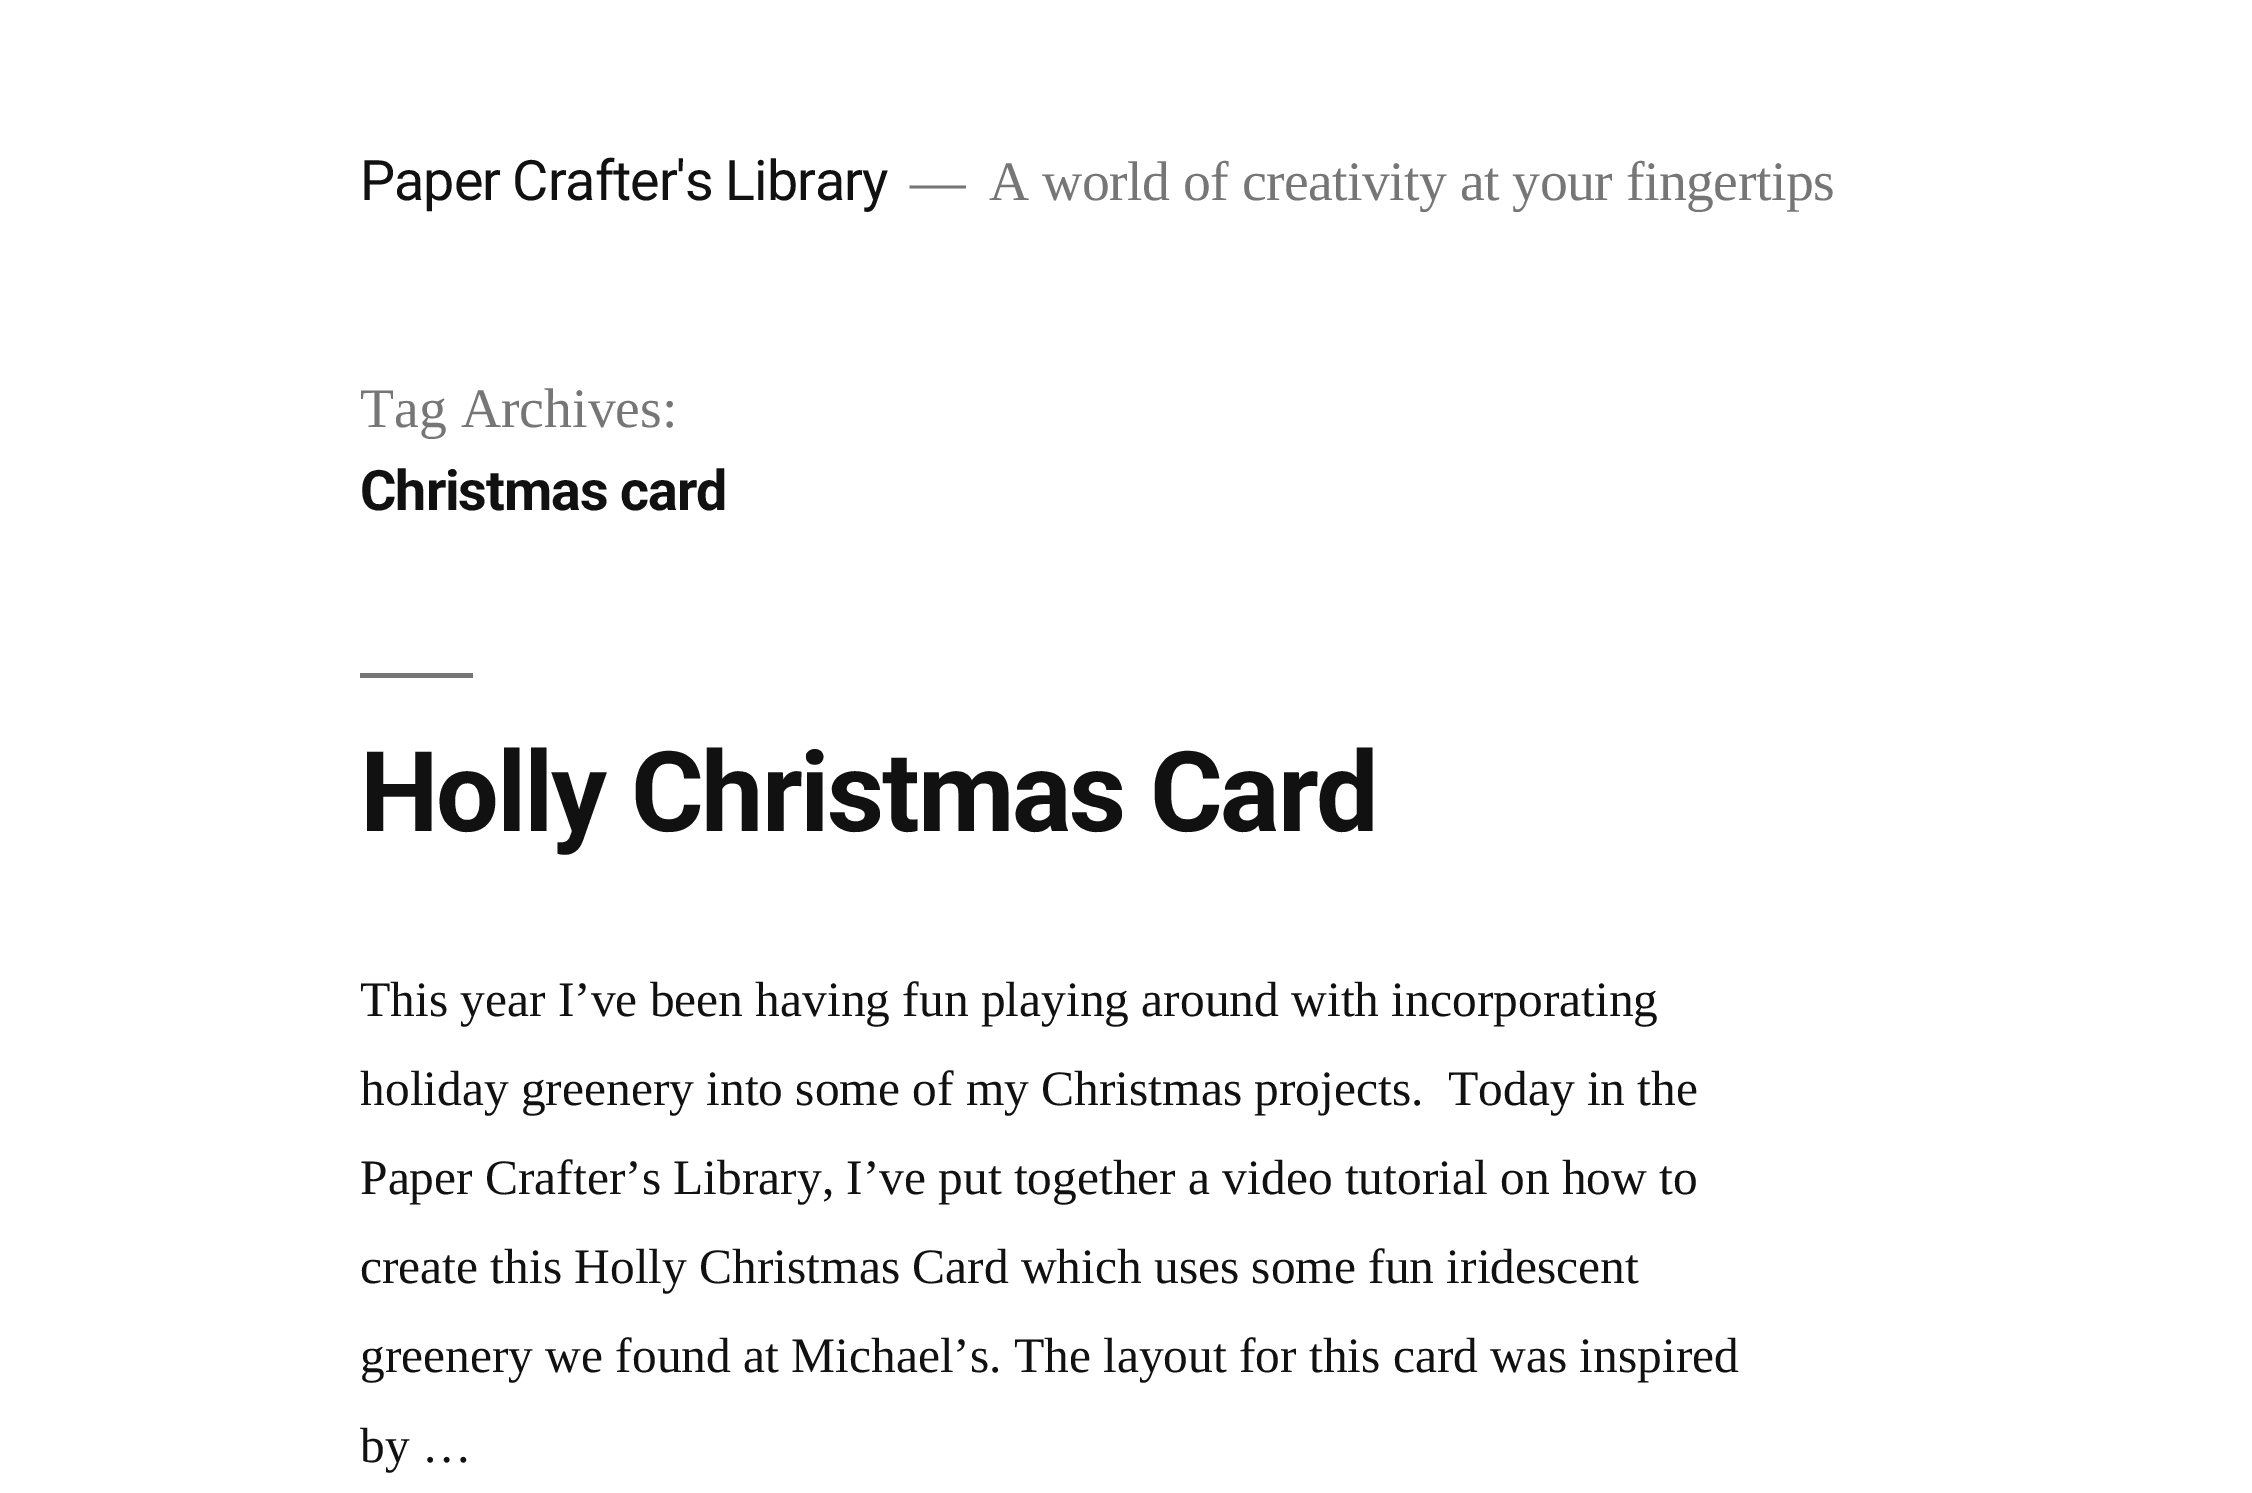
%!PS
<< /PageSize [2252 1493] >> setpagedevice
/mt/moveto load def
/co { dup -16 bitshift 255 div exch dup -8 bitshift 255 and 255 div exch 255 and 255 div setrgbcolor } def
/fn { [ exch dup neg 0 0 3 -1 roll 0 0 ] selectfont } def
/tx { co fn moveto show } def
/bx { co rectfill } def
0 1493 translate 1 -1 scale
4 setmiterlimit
0 0 2252 1493 16#FFFFFF bx
360 673 113 5 16#767676 bx
/Roboto-Regular 55.75 fn
16#111111 co
360 200 mt -1.1 0 (Paper Crafter's Library) ashow
/LiberationSerif-Regular 55.75 fn
16#767676 co
910 200 mt -.55 0 (—) ashow
989 200 mt -.55 0 (A world of creativity at your fingertips) ashow
(Tag Archives:) 360 427 /LiberationSerif-Regular 55.75 16#767676 tx
/Roboto-Bold 55.75 fn
16#111111 co
360 510 mt -1.1 0 (Christmas card) ashow
/Roboto-Bold 111.4 fn
360 831 mt -2.25 0 (Holly Christmas Card) ashow
/LiberationSerif-Regular 49.5 fn
360 1016 mt -.1 0 32 (This year I’ve been having fun playing around with incorporating) widthshow
360 1105 mt -.1 0 32 (holiday greenery into some of my Christmas projects.  Today in the) widthshow
360 1194 mt -.1 0 32 (Paper Crafter’s Library, I’ve put together a video tutorial on how to) widthshow
360 1283 mt -.1 0 32 (create this Holly Christmas Card which uses some fun iridescent) widthshow
360 1372 mt -.1 0 32 (greenery we found at Michael’s. The layout for this card was inspired) widthshow
(by …) 360 1462 /LiberationSerif-Regular 49.5 16#111111 tx
showpage
